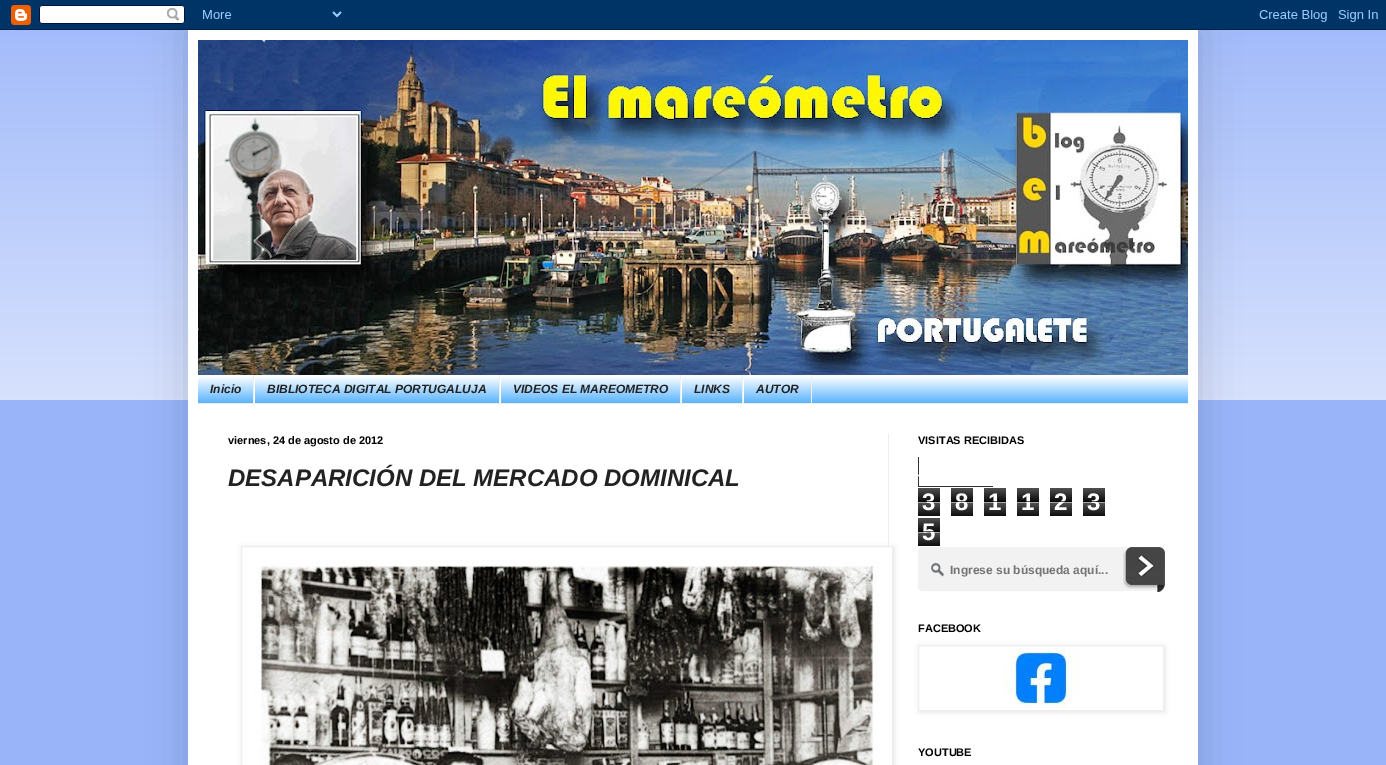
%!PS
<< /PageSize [1386 765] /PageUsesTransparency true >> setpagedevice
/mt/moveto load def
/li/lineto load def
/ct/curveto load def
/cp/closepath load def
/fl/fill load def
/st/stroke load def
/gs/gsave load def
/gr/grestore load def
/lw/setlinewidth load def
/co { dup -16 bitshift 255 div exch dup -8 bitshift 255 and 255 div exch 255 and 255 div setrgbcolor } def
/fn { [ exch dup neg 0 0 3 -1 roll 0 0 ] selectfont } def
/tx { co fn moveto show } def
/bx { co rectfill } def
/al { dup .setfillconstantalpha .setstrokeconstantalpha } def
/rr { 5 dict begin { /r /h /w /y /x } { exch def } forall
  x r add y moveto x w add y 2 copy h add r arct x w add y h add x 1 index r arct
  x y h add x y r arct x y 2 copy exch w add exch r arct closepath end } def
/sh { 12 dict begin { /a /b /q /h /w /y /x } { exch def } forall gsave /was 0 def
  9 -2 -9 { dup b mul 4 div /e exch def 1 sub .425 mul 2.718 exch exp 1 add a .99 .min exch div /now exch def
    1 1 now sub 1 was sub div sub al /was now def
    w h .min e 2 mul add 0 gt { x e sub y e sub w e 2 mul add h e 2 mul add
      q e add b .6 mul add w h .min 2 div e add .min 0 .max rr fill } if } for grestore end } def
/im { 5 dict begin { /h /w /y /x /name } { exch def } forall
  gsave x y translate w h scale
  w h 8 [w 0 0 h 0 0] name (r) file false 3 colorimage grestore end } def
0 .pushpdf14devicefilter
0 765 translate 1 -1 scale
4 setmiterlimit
0 0 1386 765 16#99B4F9 bx
(media/2.raw) 0 30 1386 370 im
16#000000 co
188 30 1010 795 0 20 .15 sh
(media/1.raw) 0 0 1386 30 im
188 30 1010 735 16#FFFFFF bx
(media/3.raw) 198 40 990 335 im
198 376 990 27 16#1594FF bx
(media/4.raw) 198 375 990 28 im
198 403 990 1 16#EEEEEE bx
253 375 1 28 16#EEEEEE bx
499 375 1 28 16#EEEEEE bx
254 375 1 28 16#FFFFFF bx
680 375 1 28 16#EEEEEE bx
500 375 1 28 16#FFFFFF bx
742 375 1 28 16#EEEEEE bx
681 375 1 28 16#FFFFFF bx
811 375 1 28 16#EEEEEE bx
743 375 1 28 16#FFFFFF bx
888 434 1 112 16#EEEEEE bx
16#000000 co
242 547 652 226 0 2.5 .1 sh
16#FFFFFF co
241.5 546.5 mt 892.5 546.5 li 892.5 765.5 li 241.5 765.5 li cp gs fl gr
16#EEEEEE co
st
(media/5.raw) 255 560 624 205 im
(media/6.raw) 918 457 75 30 im
(media/7.raw) 918 488 22 28 im
(media/7.raw) 951 488 22 28 im
(media/7.raw) 984 488 22 28 im
(media/7.raw) 1017 488 22 28 im
(media/7.raw) 1050 488 22 28 im
(media/7.raw) 1083 488 22 28 im
(media/7.raw) 918 518 22 28 im
16#F2F2F2 co
923 547 mt 1159 547 li 1159 591 li 923 591 li 920 591 918 589 918 586 ct 918 552 li 918 549 920 547 923 547 ct cp fl
(media/8.raw) 931 563 13 14 im
2 lw
923 548 mt 1158 548 li 1158 590 li 923 590 li 921 590 919 588 919 586 ct 919 552 li 919 550 921 548 923 548 ct cp st
(media/9.raw) 1123 547 42 45 im
gs
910 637 mt 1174 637 li 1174 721 li 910 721 li cp 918 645 mt 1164 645 li 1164 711 li 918 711 li cp eoclip newpath
16#000000 co
919 646 246 66 0 2.5 .1 sh
gr
16#EEEEEE co
1 lw
918.5 645.5 245 65 rectstroke
(media/10.raw) 1003 648 78 60 im
(Inicio) 210 393 /LiberationSans-BoldItalic 12 16#222222 tx
(BIBLIOTECA DIGITAL PORTUGALUJA) 267 393 /LiberationSans-BoldItalic 12 16#222222 tx
(VIDEOS EL MAREOMETRO) 513 393 /LiberationSans-BoldItalic 12 16#222222 tx
(LINKS) 694 393 /LiberationSans-BoldItalic 12 16#222222 tx
(AUTOR) 756 393 /LiberationSans-BoldItalic 12 16#222222 tx
(viernes, 24 de agosto de 2012) 228 444 /LiberationSans-Bold 11 16#000000 tx
(DESAPARICIÓN DEL MERCADO DOMINICAL) 228 486 /LiberationSans-BoldItalic 24 16#222222 tx
(VISITAS RECIBIDAS) 918 444 /LiberationSans-Bold 11 16#000000 tx
(3) 922 510 /LiberationSans-Bold 24 16#FFFFFF tx
0.65 al
918 501 22 1 16#000000 bx
918 502 22 1 16#FFFFFF bx
1 al
(8) 955 510 /LiberationSans-Bold 24 16#FFFFFF tx
0.65 al
951 501 22 1 16#000000 bx
951 502 22 1 16#FFFFFF bx
1 al
(1) 988 510 /LiberationSans-Bold 24 16#FFFFFF tx
0.65 al
984 501 22 1 16#000000 bx
984 502 22 1 16#FFFFFF bx
1 al
(1) 1021 510 /LiberationSans-Bold 24 16#FFFFFF tx
0.65 al
1017 501 22 1 16#000000 bx
1017 502 22 1 16#FFFFFF bx
1 al
(2) 1054 510 /LiberationSans-Bold 24 16#FFFFFF tx
0.65 al
1050 501 22 1 16#000000 bx
1050 502 22 1 16#FFFFFF bx
1 al
(3) 1087 510 /LiberationSans-Bold 24 16#FFFFFF tx
0.65 al
1083 501 22 1 16#000000 bx
1083 502 22 1 16#FFFFFF bx
1 al
(5) 922 540 /LiberationSans-Bold 24 16#FFFFFF tx
0.65 al
918 531 22 1 16#000000 bx
918 532 22 1 16#FFFFFF bx
1 al
(Ingrese su búsqueda aquí...) 950 574 /LiberationSans-Bold 12 16#757575 tx
(FACEBOOK) 918 632 /LiberationSans-Bold 11 16#000000 tx
(YOUTUBE) 918 756 /LiberationSans-Bold 11 16#000000 tx
.poppdf14devicefilter showpage
